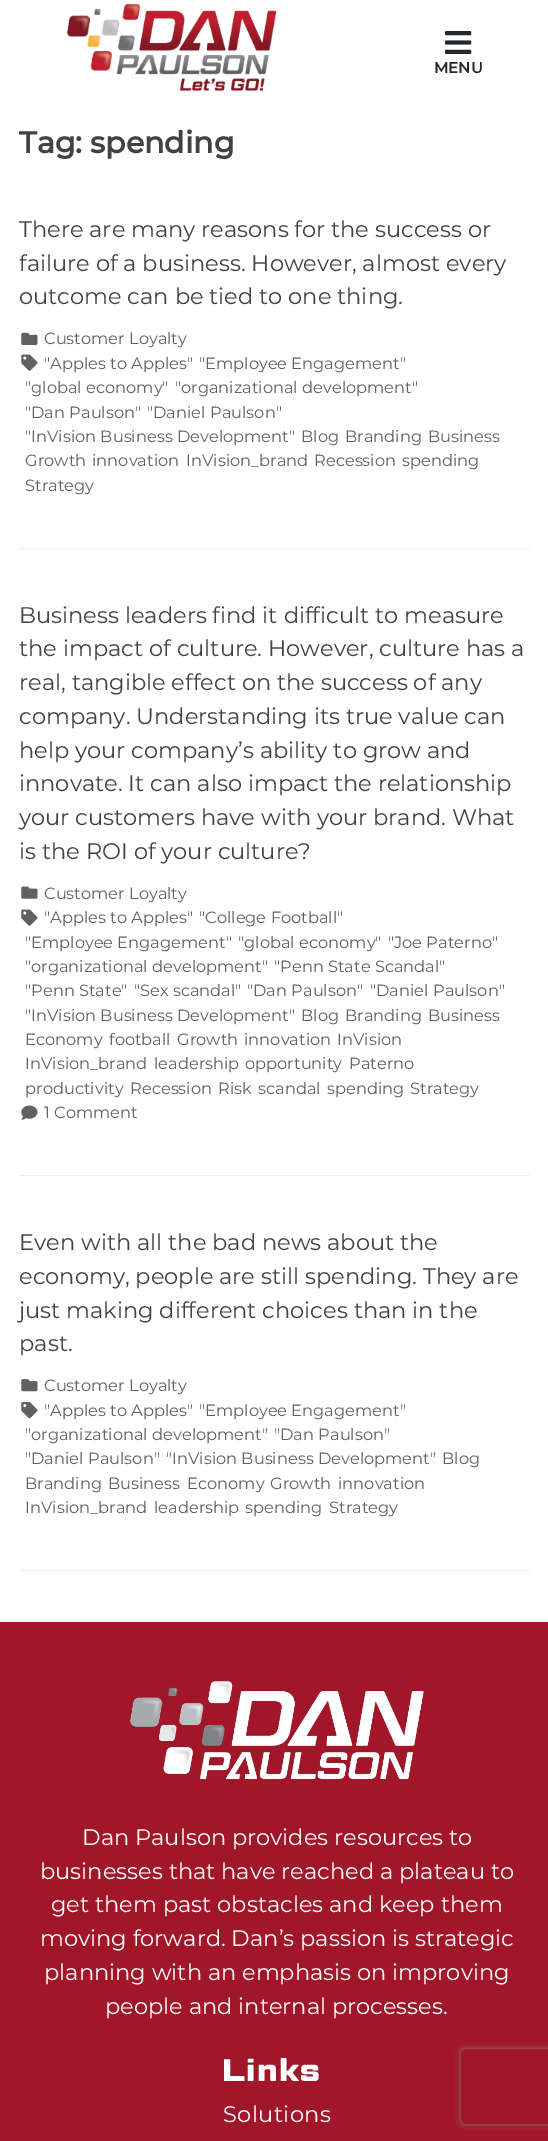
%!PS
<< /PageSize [548 2141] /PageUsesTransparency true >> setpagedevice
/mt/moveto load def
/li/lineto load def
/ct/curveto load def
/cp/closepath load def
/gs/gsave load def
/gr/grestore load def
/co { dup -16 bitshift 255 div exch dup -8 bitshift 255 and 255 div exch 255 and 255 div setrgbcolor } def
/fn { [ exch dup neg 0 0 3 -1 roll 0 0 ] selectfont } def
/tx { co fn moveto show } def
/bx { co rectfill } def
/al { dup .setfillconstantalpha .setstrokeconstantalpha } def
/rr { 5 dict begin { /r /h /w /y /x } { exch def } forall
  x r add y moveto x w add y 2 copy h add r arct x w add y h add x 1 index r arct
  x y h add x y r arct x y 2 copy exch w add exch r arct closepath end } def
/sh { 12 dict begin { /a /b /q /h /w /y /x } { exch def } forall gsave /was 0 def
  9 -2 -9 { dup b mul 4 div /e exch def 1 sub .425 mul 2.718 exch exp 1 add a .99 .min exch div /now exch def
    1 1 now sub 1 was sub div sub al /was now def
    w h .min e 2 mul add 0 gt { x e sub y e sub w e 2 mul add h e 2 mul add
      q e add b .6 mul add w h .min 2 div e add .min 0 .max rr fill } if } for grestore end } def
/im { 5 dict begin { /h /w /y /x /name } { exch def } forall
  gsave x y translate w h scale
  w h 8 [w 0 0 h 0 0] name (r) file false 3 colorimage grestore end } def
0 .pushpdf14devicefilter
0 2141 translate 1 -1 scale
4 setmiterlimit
0 0 548 2141 16#FFFFFF bx
(media/1.raw) 67 3 210 89 im
(media/2.raw) 445 31 27 23 im
19 548 511 1 16#EEEEEE bx
(media/3.raw) 21 332 17 13 im
(media/4.raw) 21 354 17 17 im
19 1175 511 1 16#EEEEEE bx
(media/5.raw) 21 886 17 13 im
(media/4.raw) 21 909 17 17 im
(media/6.raw) 21 1105 17 15 im
19 1570 511 1 16#EEEEEE bx
(media/7.raw) 21 1379 17 13 im
(media/8.raw) 21 1402 17 17 im
0 1622 548 519 16#A11729 bx
0 1621 548 1 16#EEEEEE bx
(media/9.raw) 129 1681 295 99 im
gs
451 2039 mt 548 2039 li 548 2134 li 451 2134 li cp 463.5 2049 mt 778.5 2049 li 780 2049 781 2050 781 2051.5 ct 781 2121.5 li 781 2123 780 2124 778.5 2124 ct 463.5 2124 li 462 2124 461 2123 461 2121.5 ct 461 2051.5 li 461 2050 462 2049 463.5 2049 ct cp eoclip newpath
16#808080 co
461 2049 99 75 2.5 3 1 sh
gr
(MENU) 434 73 /Montserrat-Bold 15 16#23282D tx
(Tag: spending) 19 153 /Montserrat-Bold 30 16#424242 tx
(There are many reasons for the success or) 19 237 /Montserrat-Regular 22.5 16#424242 tx
(failure of a business. However, almost every) 19 271 /Montserrat-Regular 22.5 16#424242 tx
(outcome can be tied to one thing.) 19 304 /Montserrat-Regular 22.5 16#424242 tx
(Customer Loyalty) 44 344 /Montserrat-Regular 16.25 16#616161 tx
("Apples to Apples") 44 369 /Montserrat-Regular 16.25 16#616161 tx
("Employee Engagement") 199 369 /Montserrat-Regular 16.25 16#616161 tx
("global economy") 25 393 /Montserrat-Regular 16.25 16#616161 tx
("organizational development") 175 393 /Montserrat-Regular 16.25 16#616161 tx
("Dan Paulson") 25 418 /Montserrat-Regular 16.25 16#616161 tx
("Daniel Paulson") 147 418 /Montserrat-Regular 16.25 16#616161 tx
("InVision Business Development") 25 442 /Montserrat-Regular 16.25 16#616161 tx
(Blog) 301 442 /Montserrat-Regular 16.25 16#616161 tx
(Branding) 345 442 /Montserrat-Regular 16.25 16#616161 tx
(Business) 428 442 /Montserrat-Regular 16.25 16#616161 tx
(Growth) 25 466 /Montserrat-Regular 16.25 16#616161 tx
(innovation) 92 466 /Montserrat-Regular 16.25 16#616161 tx
(InVision_brand) 186 466 /Montserrat-Regular 16.25 16#616161 tx
(Recession) 314 466 /Montserrat-Regular 16.25 16#616161 tx
(spending) 402 466 /Montserrat-Regular 16.25 16#616161 tx
(Strategy) 25 491 /Montserrat-Regular 16.25 16#616161 tx
(Business leaders find it difficult to measure) 19 623 /Montserrat-Regular 22.5 16#424242 tx
(the impact of culture. However, culture has a) 19 656 /Montserrat-Regular 22.5 16#424242 tx
(real, tangible effect on the success of any) 19 690 /Montserrat-Regular 22.5 16#424242 tx
(company. Understanding its true value can) 19 724 /Montserrat-Regular 22.5 16#424242 tx
(help your company’s ability to grow and) 19 758 /Montserrat-Regular 22.5 16#424242 tx
(innovate. It can also impact the relationship) 19 791 /Montserrat-Regular 22.5 16#424242 tx
(your customers have with your brand. What) 19 825 /Montserrat-Regular 22.5 16#424242 tx
(is the ROI of your culture?) 19 859 /Montserrat-Regular 22.5 16#424242 tx
(Customer Loyalty) 44 899 /Montserrat-Regular 16.25 16#616161 tx
("Apples to Apples") 44 923 /Montserrat-Regular 16.25 16#616161 tx
("College Football") 199 923 /Montserrat-Regular 16.25 16#616161 tx
("Employee Engagement") 25 948 /Montserrat-Regular 16.25 16#616161 tx
("global economy") 238 948 /Montserrat-Regular 16.25 16#616161 tx
("Joe Paterno") 388 948 /Montserrat-Regular 16.25 16#616161 tx
("organizational development") 25 972 /Montserrat-Regular 16.25 16#616161 tx
("Penn State Scandal") 274 972 /Montserrat-Regular 16.25 16#616161 tx
("Penn State") 25 996 /Montserrat-Regular 16.25 16#616161 tx
("Sex scandal") 134 996 /Montserrat-Regular 16.25 16#616161 tx
("Dan Paulson") 247 996 /Montserrat-Regular 16.25 16#616161 tx
("Daniel Paulson") 370 996 /Montserrat-Regular 16.25 16#616161 tx
("InVision Business Development") 25 1021 /Montserrat-Regular 16.25 16#616161 tx
(Blog) 301 1021 /Montserrat-Regular 16.25 16#616161 tx
(Branding) 345 1021 /Montserrat-Regular 16.25 16#616161 tx
(Business) 428 1021 /Montserrat-Regular 16.25 16#616161 tx
(Economy) 25 1045 /Montserrat-Regular 16.25 16#616161 tx
(football) 109 1045 /Montserrat-Regular 16.25 16#616161 tx
(Growth) 177 1045 /Montserrat-Regular 16.25 16#616161 tx
(innovation) 244 1045 /Montserrat-Regular 16.25 16#616161 tx
(InVision) 337 1045 /Montserrat-Regular 16.25 16#616161 tx
(InVision_brand) 25 1069 /Montserrat-Regular 16.25 16#616161 tx
(leadership) 154 1069 /Montserrat-Regular 16.25 16#616161 tx
(opportunity) 245 1069 /Montserrat-Regular 16.25 16#616161 tx
(Paterno) 349 1069 /Montserrat-Regular 16.25 16#616161 tx
(productivity) 25 1094 /Montserrat-Regular 16.25 16#616161 tx
(Recession) 130 1094 /Montserrat-Regular 16.25 16#616161 tx
(Risk) 218 1094 /Montserrat-Regular 16.25 16#616161 tx
(scandal) 258 1094 /Montserrat-Regular 16.25 16#616161 tx
(spending) 327 1094 /Montserrat-Regular 16.25 16#616161 tx
(Strategy) 410 1094 /Montserrat-Regular 16.25 16#616161 tx
(1 Comment) 44 1118 /Montserrat-Regular 16.25 16#616161 tx
(Even with all the bad news about the) 19 1250 /Montserrat-Regular 22.5 16#424242 tx
(economy, people are still spending. They are) 19 1284 /Montserrat-Regular 22.5 16#424242 tx
(just making different choices than in the) 19 1318 /Montserrat-Regular 22.5 16#424242 tx
(past.) 19 1351 /Montserrat-Regular 22.5 16#424242 tx
(Customer Loyalty) 44 1391 /Montserrat-Regular 16.25 16#616161 tx
("Apples to Apples") 44 1416 /Montserrat-Regular 16.25 16#616161 tx
("Employee Engagement") 199 1416 /Montserrat-Regular 16.25 16#616161 tx
("organizational development") 25 1440 /Montserrat-Regular 16.25 16#616161 tx
("Dan Paulson") 274 1440 /Montserrat-Regular 16.25 16#616161 tx
("Daniel Paulson") 25 1464 /Montserrat-Regular 16.25 16#616161 tx
("InVision Business Development") 166 1464 /Montserrat-Regular 16.25 16#616161 tx
(Blog) 442 1464 /Montserrat-Regular 16.25 16#616161 tx
(Branding) 25 1489 /Montserrat-Regular 16.25 16#616161 tx
(Business) 108 1489 /Montserrat-Regular 16.25 16#616161 tx
(Economy) 187 1489 /Montserrat-Regular 16.25 16#616161 tx
(Growth) 270 1489 /Montserrat-Regular 16.25 16#616161 tx
(innovation) 338 1489 /Montserrat-Regular 16.25 16#616161 tx
(InVision_brand) 25 1513 /Montserrat-Regular 16.25 16#616161 tx
(leadership) 154 1513 /Montserrat-Regular 16.25 16#616161 tx
(spending) 245 1513 /Montserrat-Regular 16.25 16#616161 tx
(Strategy) 329 1513 /Montserrat-Regular 16.25 16#616161 tx
(Dan Paulson provides resources to) 82 1845 /Montserrat-Regular 22.5 16#FFFFFF tx
(businesses that have reached a plateau to) 40 1879 /Montserrat-Regular 22.5 16#FFFFFF tx
(get them past obstacles and keep them) 51 1912 /Montserrat-Regular 22.5 16#FFFFFF tx
(moving forward. Dan’s passion is strategic) 40 1946 /Montserrat-Regular 22.5 16#FFFFFF tx
(planning with an emphasis on improving) 44 1980 /Montserrat-Regular 22.5 16#FFFFFF tx
(people and internal processes.) 105 2014 /Montserrat-Regular 22.5 16#FFFFFF tx
/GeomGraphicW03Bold-Bold 31 fn
222 2081 mt 1.25 0 (Links) ashow
/Montserrat-Regular 22.5 fn
223 2122 mt .4 0 (Solutions) ashow
.poppdf14devicefilter showpage
